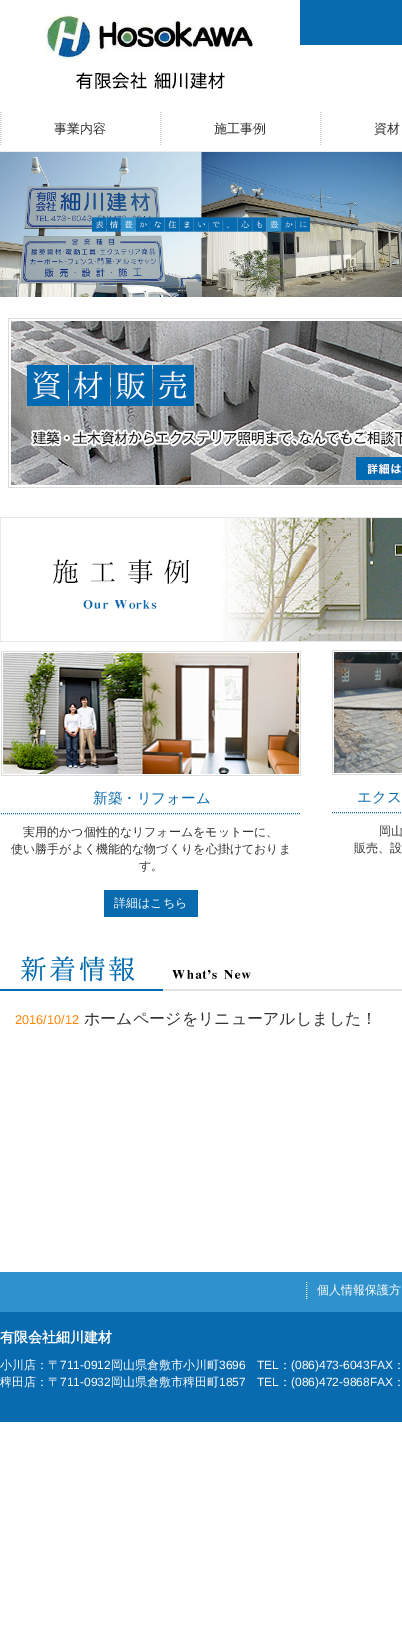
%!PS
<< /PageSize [402 1643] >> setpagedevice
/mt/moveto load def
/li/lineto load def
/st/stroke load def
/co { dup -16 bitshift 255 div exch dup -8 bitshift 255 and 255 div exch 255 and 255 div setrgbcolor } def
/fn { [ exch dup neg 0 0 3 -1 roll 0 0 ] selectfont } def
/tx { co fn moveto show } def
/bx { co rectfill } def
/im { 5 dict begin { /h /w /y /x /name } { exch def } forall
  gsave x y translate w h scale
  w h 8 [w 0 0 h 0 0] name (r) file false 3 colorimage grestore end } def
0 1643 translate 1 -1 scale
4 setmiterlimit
0 0 402 1643 16#FFFFFF bx
0 151 402 1 16#EEEEEE bx
300 0 102 45 16#086AAF bx
(media/1.raw) 0 0 300 89 im
16#CCCCCC co
[1 1] 0 setdash
.5 112 mt .5 146 li st
160.5 112 mt 160.5 146 li st
320.5 112 mt 320.5 146 li st
(media/2.raw) 0 152 402 145 im
(media/3.raw) 8 318 394 170 im
(media/4.raw) 0 517 402 125 im
(media/5.raw) 1 651 300 125 im
16#086AAF co
1 813.5 mt 301 813.5 li st
104 890 94 27 16#086AAF bx
(media/6.raw) 332 650 70 125 im
332 812.5 mt 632 812.5 li st
(media/7.raw) 0 956 402 35 im
0 1272 402 40 16#3092CD bx
16#FFFFFF co
306.5 1282 mt 306.5 1299 li st
0 1312 402 110 16#086AAF bx
(事業内容) 54 133 /WenQuanYiZenHei-Medium 13 16#333333 tx
(施工事例) 214 133 /WenQuanYiZenHei-Medium 13 16#333333 tx
(資材) 374 133 /WenQuanYiZenHei-Medium 13 16#333333 tx
(新築・リフォーム) 93 803 /WenQuanYiZenHei-Medium 14.5 16#086AAF tx
(実用的かつ個性的なリフォームをモットーに、) 23 836 /WenQuanYiZenHei-Medium 12 16#333333 tx
(使い勝手がよく機能的な物づくりを心掛けておりま) 11 853 /WenQuanYiZenHei-Medium 12 16#333333 tx
(す。) 139 870 /WenQuanYiZenHei-Medium 12 16#333333 tx
(詳細はこちら) 114 907 /WenQuanYiZenHei-Medium 12 16#FFFFFF tx
(エクス) 357 802 /WenQuanYiZenHei-Medium 14.5 16#086AAF tx
(岡山) 379 835 /WenQuanYiZenHei-Medium 12 16#333333 tx
(販売、設) 354 852 /WenQuanYiZenHei-Medium 12 16#333333 tx
(2016/10/12) 15 1024 /LiberationSans-Regular 12.75 16#FF8400 tx
(ホームページをリニューアルしました！) 84 1024 /WenQuanYiZenHei-Medium 16 16#333333 tx
(個人情報保護方) 317 1294 /WenQuanYiZenHei-Medium 12 16#FFFFFF tx
(有限会社細川建材) 0 1342 /WenQuanYiZenHei-Bold 14 16#FFFFFF tx
(小川店：〒) 0 1369 /WenQuanYiZenHei-Medium 12 16#FFFFFF tx
(711-0912) 60 1369 /LiberationSans-Regular 12 16#FFFFFF tx
(岡山県倉敷市小川町) 111 1369 /WenQuanYiZenHei-Medium 12 16#FFFFFF tx
(3696) 219 1369 /LiberationSans-Regular 12 16#FFFFFF tx
(TEL) 257 1369 /LiberationSans-Regular 12 16#FFFFFF tx
(：) 279 1369 /WenQuanYiZenHei-Medium 12 16#FFFFFF tx
(\(086\)473-6043FAX) 291 1369 /LiberationSans-Regular 12 16#FFFFFF tx
(：) 393 1369 /WenQuanYiZenHei-Medium 12 16#FFFFFF tx
(稗田店：〒) 0 1386 /WenQuanYiZenHei-Medium 12 16#FFFFFF tx
(711-0932) 60 1386 /LiberationSans-Regular 12 16#FFFFFF tx
(岡山県倉敷市稗田町) 111 1386 /WenQuanYiZenHei-Medium 12 16#FFFFFF tx
(1857) 219 1386 /LiberationSans-Regular 12 16#FFFFFF tx
(TEL) 257 1386 /LiberationSans-Regular 12 16#FFFFFF tx
(：) 279 1386 /WenQuanYiZenHei-Medium 12 16#FFFFFF tx
(\(086\)472-9868FAX) 291 1386 /LiberationSans-Regular 12 16#FFFFFF tx
(：) 393 1386 /WenQuanYiZenHei-Medium 12 16#FFFFFF tx
showpage
